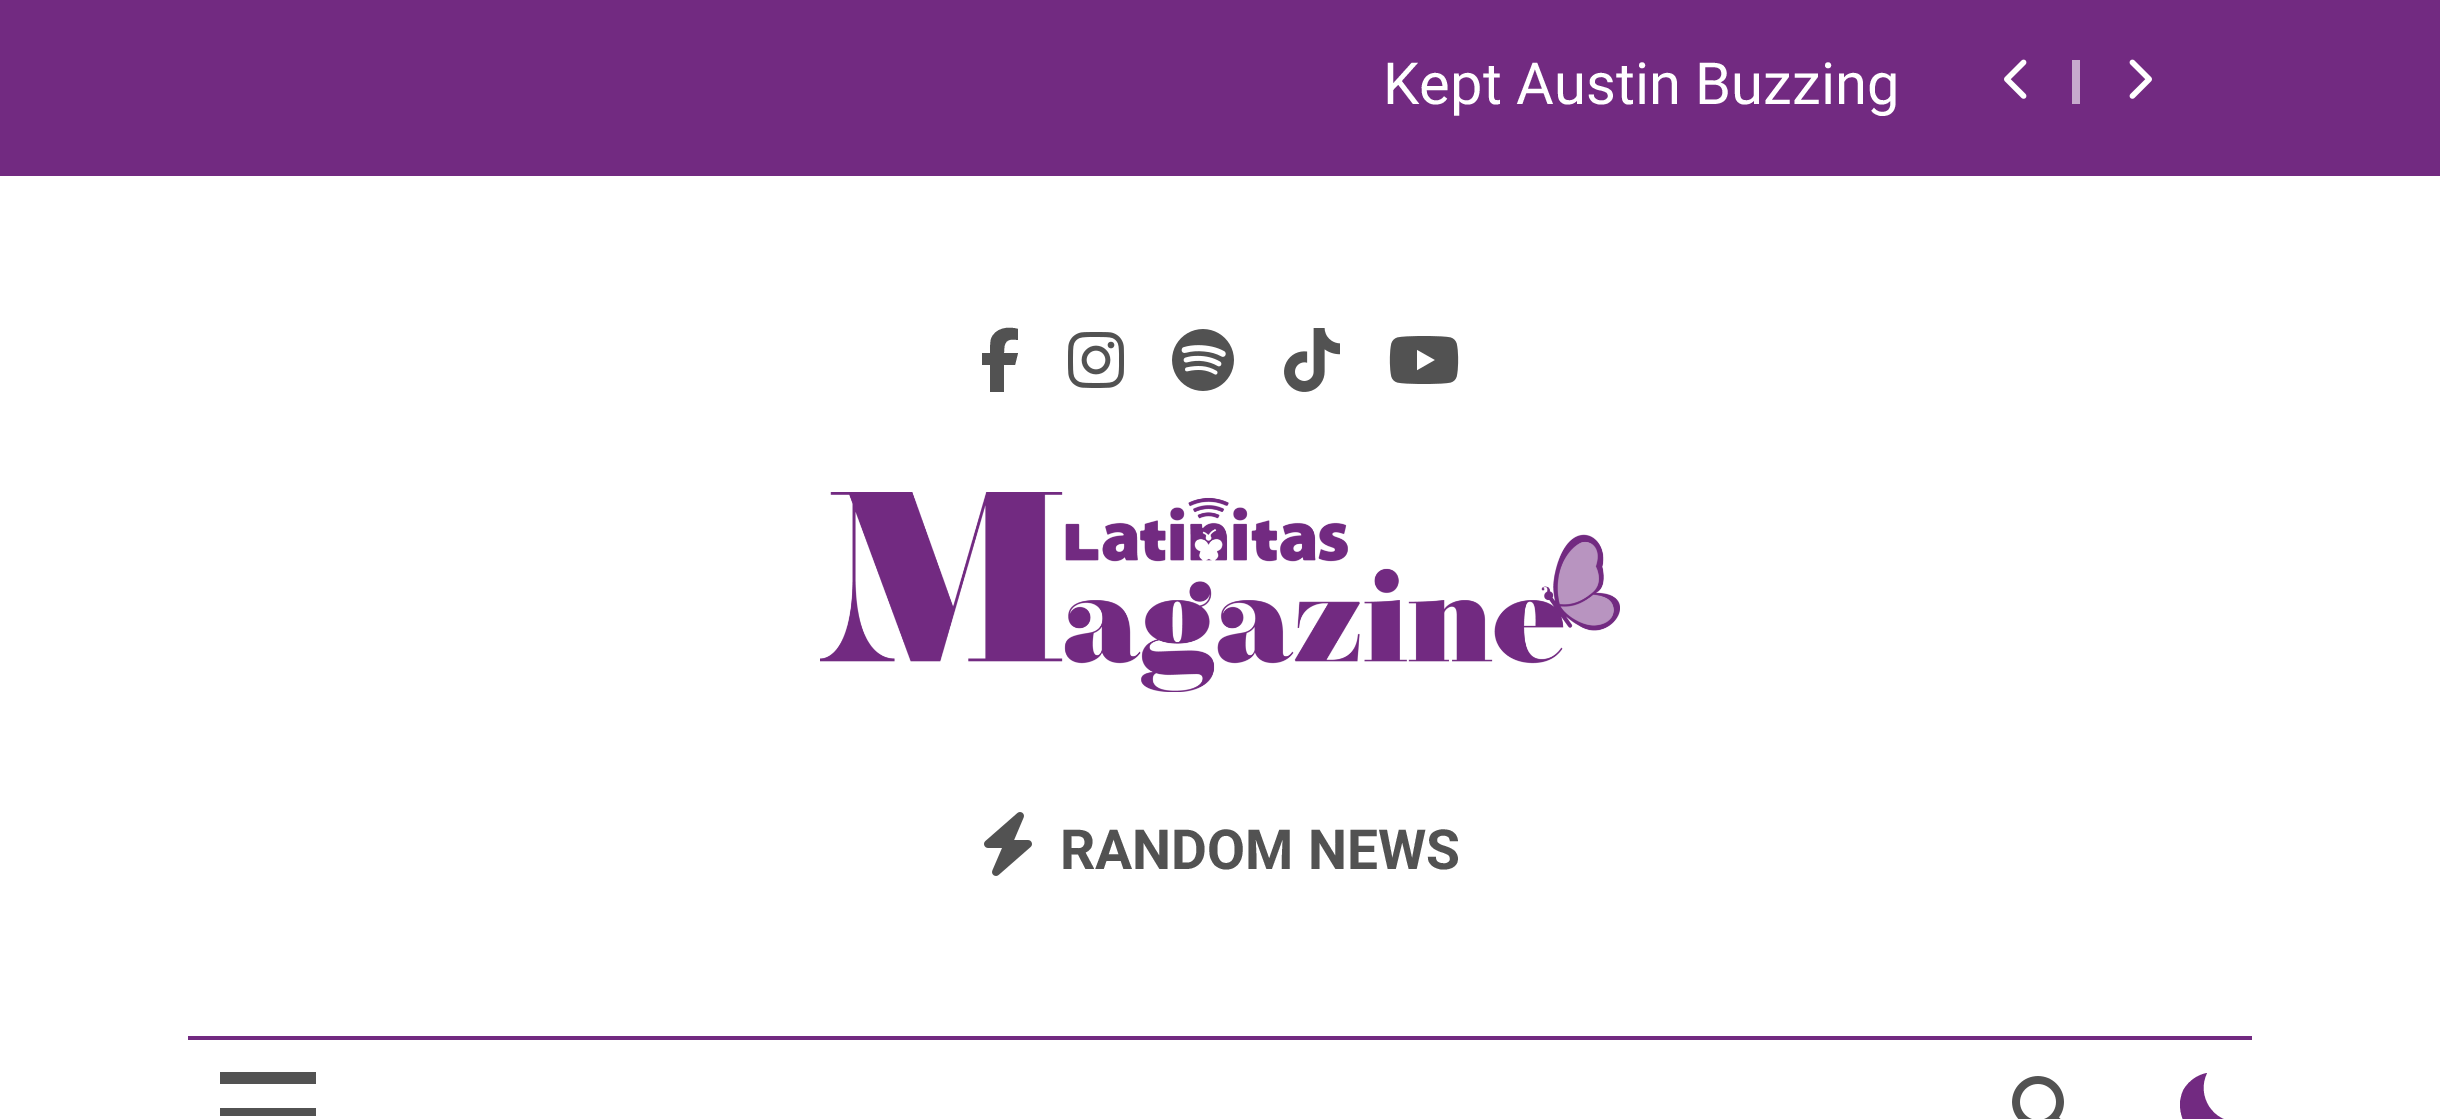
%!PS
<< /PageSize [2440 1119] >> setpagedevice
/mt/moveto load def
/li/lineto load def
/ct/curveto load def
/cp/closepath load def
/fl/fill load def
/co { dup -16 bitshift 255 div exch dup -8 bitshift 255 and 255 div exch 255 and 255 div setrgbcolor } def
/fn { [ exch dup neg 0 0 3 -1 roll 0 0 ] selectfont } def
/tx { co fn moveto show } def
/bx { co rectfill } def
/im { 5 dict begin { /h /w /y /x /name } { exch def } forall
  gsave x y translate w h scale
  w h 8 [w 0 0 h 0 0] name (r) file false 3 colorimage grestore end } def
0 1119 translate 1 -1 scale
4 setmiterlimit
0 0 2440 1119 16#722A81 bx
(media/1.raw) 2004 59 23 40 im
2072 60 8 44 16#C7AACD bx
(media/2.raw) 2129 59 23 40 im
0 176 2440 943 16#FFFFFF bx
16#525252 co
990 365 mt 990 392 li 990 365 li 990 392 li 1004 392 li 1004 365 li 1015 365 li 1018 353 li 1004 353 li 1004 342 1006 338 1018 340 ct 1018 329 li 1008 326 995 328 991 339 ct 990 344 990 349 990 353 ct 982 353 li 982 365 li cp fl
(media/3.raw) 1068 332 56 56 im
(media/4.raw) 1172 329 62 62 im
(media/5.raw) 1284 328 56 64 im
(media/6.raw) 1389 336 70 48 im
(media/7.raw) 820 492 800 200 im
(media/8.raw) 984 812 48 64 im
188 1036 2064 4 16#722A81 bx
220 1072 96 12 16#525252 bx
220 1108 96 8 16#525252 bx
(media/9.raw) 2012 1076 52 43 im
16#722A81 co
2207 1073 mt 2197 1075 2189 1081 2184 1089 ct 2180 1096 2179 1105 2181 1113 ct 2187 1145 2233 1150 2248 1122 ct 2241 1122 li 2212 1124 2196 1095 2207 1073 ct cp fl
(Kept Austin Buzzing) 1383 104 /Roboto-Regular 58 16#FFFFFF tx
(RANDOM NEWS) 1060 869 /Roboto-Bold 55.25 16#525252 tx
showpage
